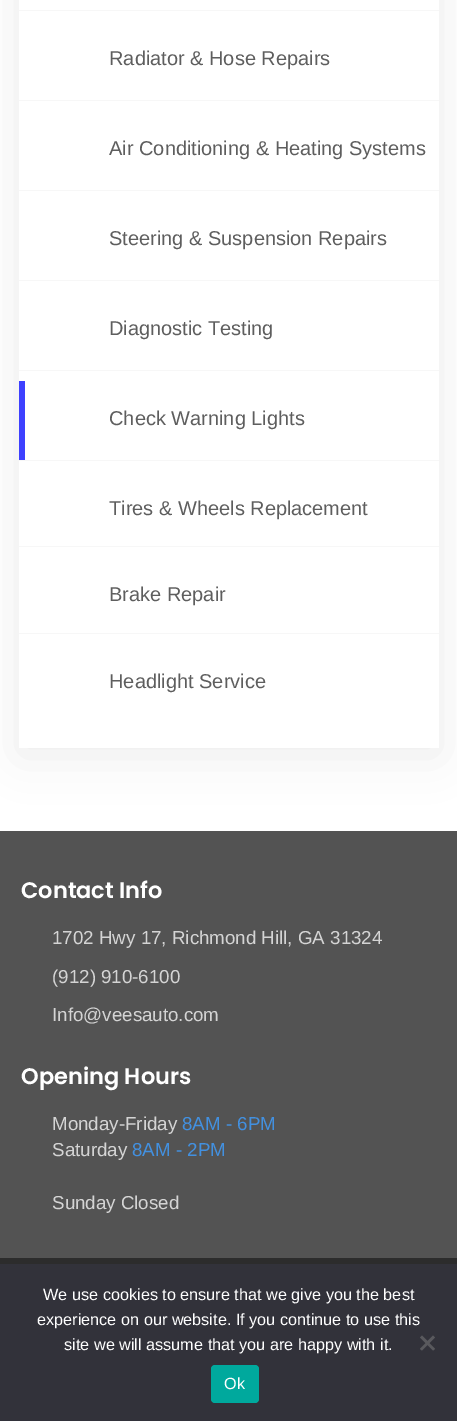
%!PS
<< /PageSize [457 1421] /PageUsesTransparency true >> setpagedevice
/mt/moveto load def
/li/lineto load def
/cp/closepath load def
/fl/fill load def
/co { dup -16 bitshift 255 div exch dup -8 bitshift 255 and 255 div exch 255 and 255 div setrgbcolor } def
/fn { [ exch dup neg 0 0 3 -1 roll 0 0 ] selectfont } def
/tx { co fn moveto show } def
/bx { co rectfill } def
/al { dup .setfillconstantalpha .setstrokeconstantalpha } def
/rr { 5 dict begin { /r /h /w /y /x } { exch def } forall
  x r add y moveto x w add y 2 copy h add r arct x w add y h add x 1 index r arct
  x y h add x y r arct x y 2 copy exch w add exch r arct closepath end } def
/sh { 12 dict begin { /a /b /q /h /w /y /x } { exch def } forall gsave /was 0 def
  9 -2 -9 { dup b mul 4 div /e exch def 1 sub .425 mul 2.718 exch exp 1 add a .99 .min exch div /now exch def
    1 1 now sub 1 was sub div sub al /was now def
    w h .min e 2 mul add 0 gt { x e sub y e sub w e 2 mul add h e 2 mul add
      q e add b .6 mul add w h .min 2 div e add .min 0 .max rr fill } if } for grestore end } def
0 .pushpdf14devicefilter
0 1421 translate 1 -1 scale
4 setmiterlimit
0 0 457 1421 16#FFFFFF bx
16#000000 co
19 -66 420 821 0 22 .07 sh
19 0 420 748 16#FFFFFF bx
19 10 420 1 16#F7F7F7 bx
19 100 420 1 16#F7F7F7 bx
19 190 420 1 16#F7F7F7 bx
19 280 420 1 16#F7F7F7 bx
19 370 420 1 16#F7F7F7 bx
19 460 420 1 16#F7F7F7 bx
19 381 6 79 16#3D40FF bx
19 546 420 1 16#F7F7F7 bx
19 633 420 1 16#F7F7F7 bx
0 1258 457 6 16#2C2C2C bx
0 831 457 427 16#535353 bx
0 1264 457 157 16#32323A bx
16#59595D co
433 1335.5 mt 435 1337.5 li 422 1350.5 li 420 1349 li cp fl
420 1337.5 mt 422 1335.5 li 435 1349 li 433 1350.5 li cp fl
16#00A99D co
211 1365 48 38 4 rr fl
(Radiator & Hose Repairs) 109 65 /LiberationSans-Regular 20 16#5E5E5E tx
(Air Conditioning & Heating Systems) 109 155 /LiberationSans-Regular 20 16#5E5E5E tx
(Steering & Suspension Repairs) 109 245 /LiberationSans-Regular 20 16#5E5E5E tx
(Diagnostic Testing) 109 335 /LiberationSans-Regular 20 16#5E5E5E tx
(Check Warning Lights) 109 425 /LiberationSans-Regular 20 16#5E5E5E tx
(Tires & Wheels Replacement) 109 515 /LiberationSans-Regular 20 16#5E5E5E tx
(Brake Repair) 109 601 /LiberationSans-Regular 20 16#5E5E5E tx
(Headlight Service) 109 688 /LiberationSans-Regular 20 16#5E5E5E tx
(Contact Info) 21 898 /Poppins-SemiBold 22.5 16#FFFFFF tx
(1702 Hwy 17, Richmond Hill, GA 31324) 52 944 /LiberationSans-Regular 18.75 16#D4D4D4 tx
(\(912\) 910-6100) 52 983 /LiberationSans-Regular 18.75 16#D4D4D4 tx
(Info@veesauto.com) 52 1021 /LiberationSans-Regular 18.75 16#D4D4D4 tx
(Opening Hours) 21 1084 /Poppins-SemiBold 22.5 16#FFFFFF tx
(Monday-Friday) 52 1130 /LiberationSans-Regular 18.75 16#D4D4D4 tx
(8AM - 6PM) 182 1130 /LiberationSans-Regular 18.75 16#4290E0 tx
(Saturday) 52 1156 /LiberationSans-Regular 18.75 16#D4D4D4 tx
(8AM - 2PM) 132 1156 /LiberationSans-Regular 18.75 16#4290E0 tx
(Sunday Closed) 52 1209 /LiberationSans-Regular 18.75 16#D4D4D4 tx
(We use cookies to ensure that we give you the best) 43 1300 /LiberationSans-Regular 16.25 16#FFFFFF tx
(experience on our website. If you continue to use this) 37 1325 /LiberationSans-Regular 16.25 16#FFFFFF tx
(site we will assume that you are happy with it.) 64 1350 /LiberationSans-Regular 16.25 16#FFFFFF tx
(Ok) 224 1389 /LiberationSans-Regular 16.25 16#FFFFFF tx
.poppdf14devicefilter showpage
